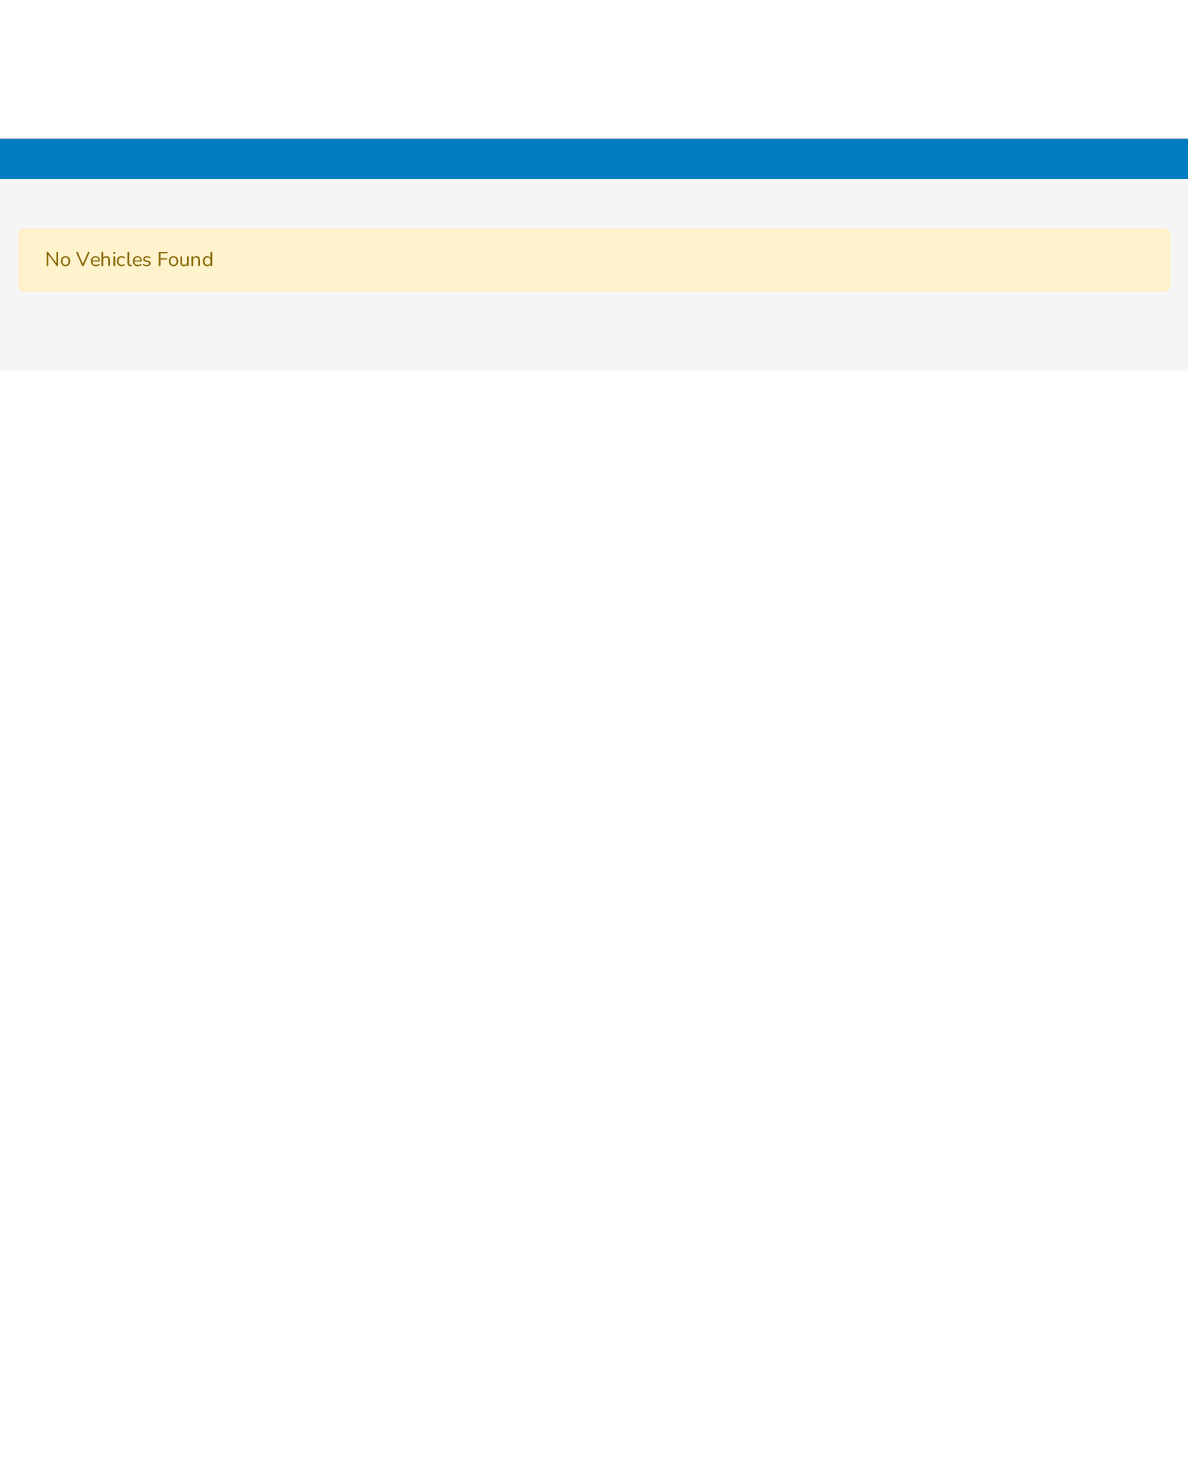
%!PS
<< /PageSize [1188 1480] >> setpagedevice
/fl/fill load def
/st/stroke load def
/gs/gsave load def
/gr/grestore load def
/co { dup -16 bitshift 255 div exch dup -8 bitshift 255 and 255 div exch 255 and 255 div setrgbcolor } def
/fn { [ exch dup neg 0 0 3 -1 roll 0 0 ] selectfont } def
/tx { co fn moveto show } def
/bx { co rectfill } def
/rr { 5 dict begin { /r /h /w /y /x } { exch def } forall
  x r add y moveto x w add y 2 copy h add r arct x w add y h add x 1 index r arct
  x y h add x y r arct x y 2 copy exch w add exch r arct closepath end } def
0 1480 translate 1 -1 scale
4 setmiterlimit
0 0 1188 1480 16#FFFFFF bx
0 179 1188 192 16#F5F5F5 bx
0 139 1188 40 16#007CC3 bx
0 138 1188 1 16#C6C6C6 bx
16#FFF3CD co
19.5 229.5 1150 61 4.5 rr gs fl gr
16#FFEEBA co
st
(No Vehicles Found) 45 266 /Nunito-Regular 20 16#856404 tx
showpage
